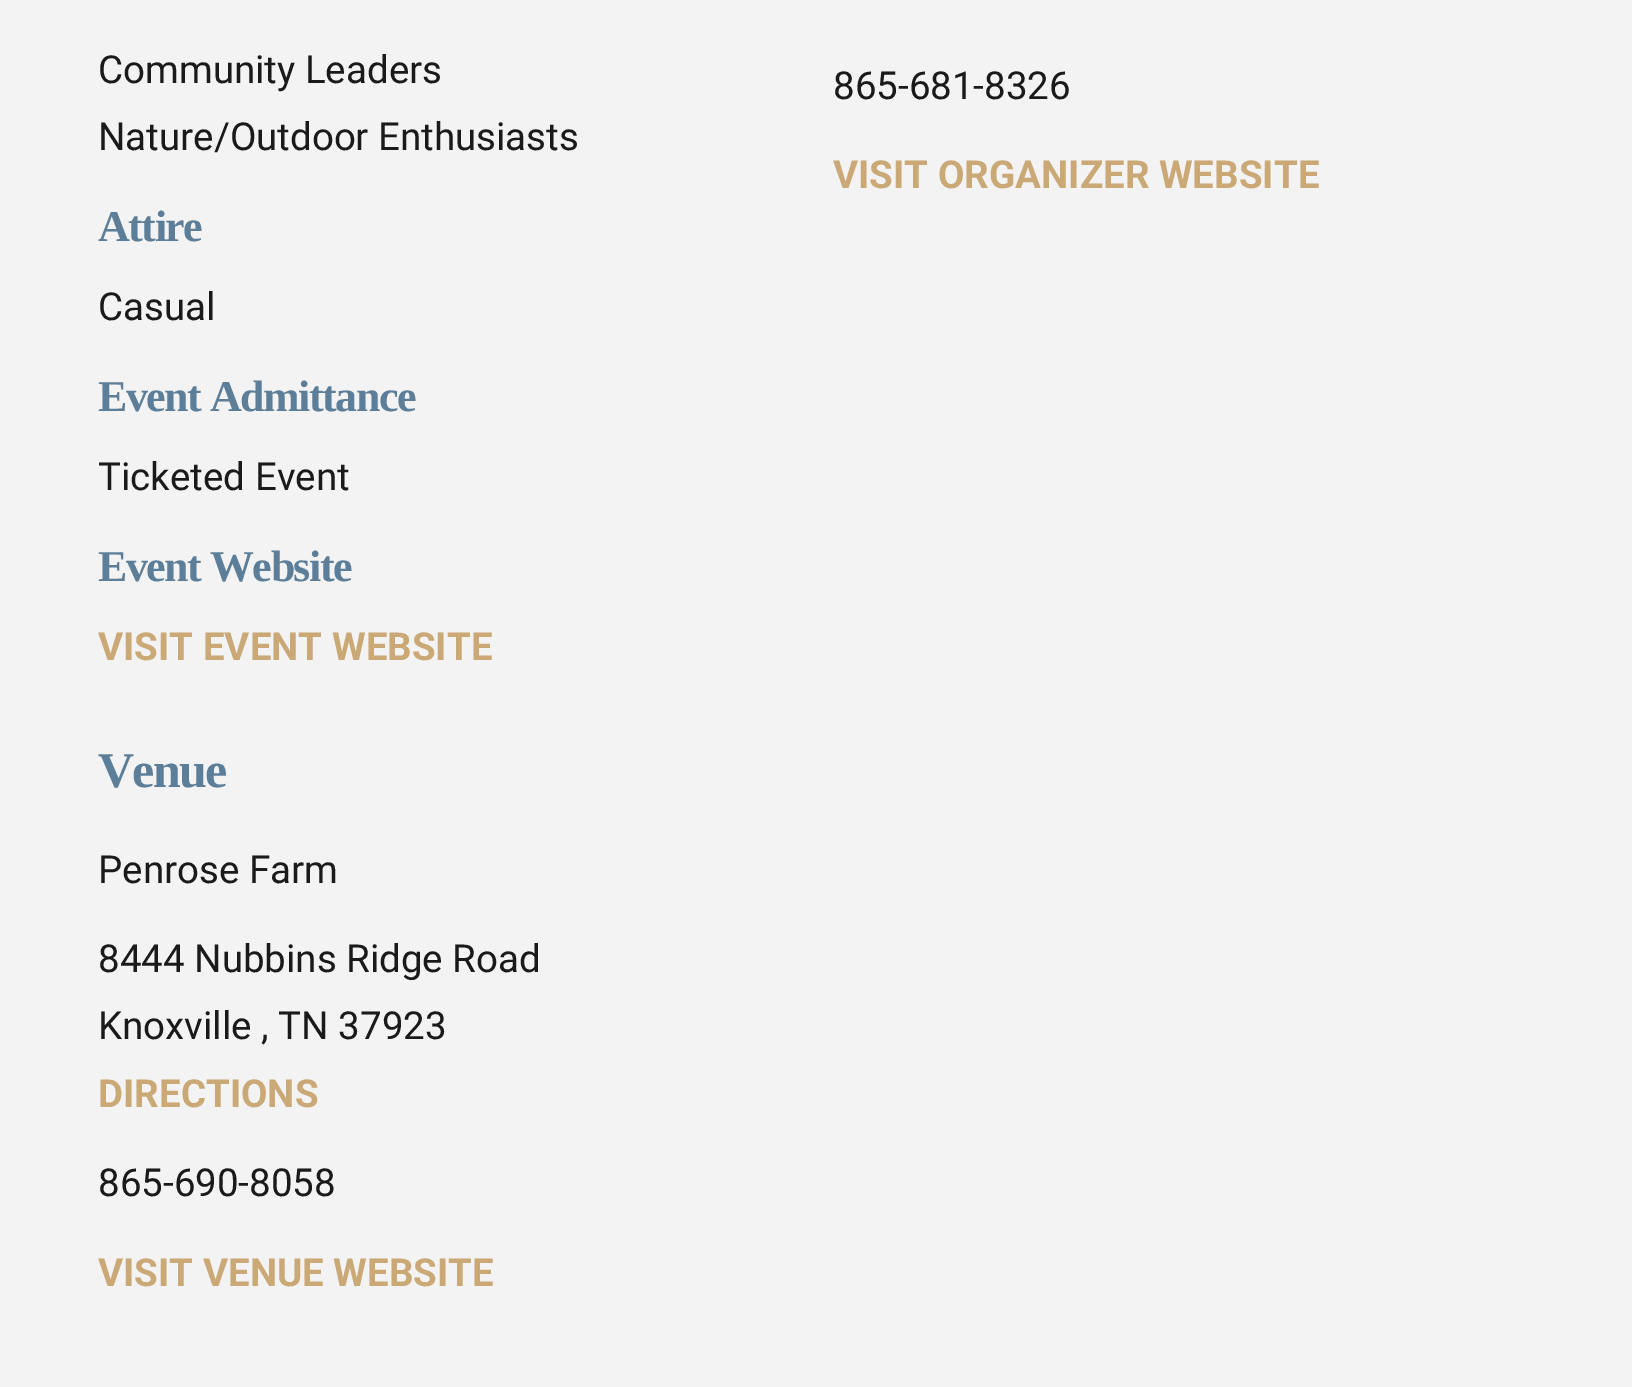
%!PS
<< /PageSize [1632 1387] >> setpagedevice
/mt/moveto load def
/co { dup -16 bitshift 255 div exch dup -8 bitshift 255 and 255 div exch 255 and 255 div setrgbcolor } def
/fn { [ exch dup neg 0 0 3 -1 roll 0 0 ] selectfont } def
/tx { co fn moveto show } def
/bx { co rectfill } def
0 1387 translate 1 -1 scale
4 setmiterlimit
0 0 1632 1387 16#F3F3F3 bx
(Community Leaders) 98 83 /Roboto-Regular 38.5 16#1A1A1A tx
(Nature/Outdoor Enthusiasts) 98 150 /Roboto-Regular 38.5 16#1A1A1A tx
/LiberationSerif-Bold 44 fn
16#5C7E98 co
98 241 mt -1.5 0 (Attire) ashow
(Casual) 98 320 /Roboto-Regular 38.5 16#1A1A1A tx
/LiberationSerif-Bold 44 fn
16#5C7E98 co
98 411 mt -1.5 0 (Event Admittance) ashow
(Ticketed Event) 98 490 /Roboto-Regular 38.5 16#1A1A1A tx
/LiberationSerif-Bold 44 fn
16#5C7E98 co
98 581 mt -1.5 0 (Event Website) ashow
(VISIT EVENT WEBSITE) 98 660 /Roboto-Bold 38.5 16#CAA977 tx
(865-681-8326) 833 99 /Roboto-Regular 38.5 16#1A1A1A tx
(VISIT ORGANIZER WEBSITE) 833 188 /Roboto-Bold 38.5 16#CAA977 tx
/LiberationSerif-Bold 50 fn
16#5C7E98 co
98 787 mt -1.75 0 (Venue) ashow
(Penrose Farm) 98 883 /Roboto-Regular 38.5 16#1A1A1A tx
(8444 Nubbins Ridge Road) 98 972 /Roboto-Regular 38.5 16#1A1A1A tx
(Knoxville , TN 37923) 98 1039 /Roboto-Regular 38.5 16#1A1A1A tx
(DIRECTIONS) 98 1107 /Roboto-Bold 38.5 16#CAA977 tx
(865-690-8058) 98 1196 /Roboto-Regular 38.5 16#1A1A1A tx
(VISIT VENUE WEBSITE) 98 1286 /Roboto-Bold 38.5 16#CAA977 tx
showpage
